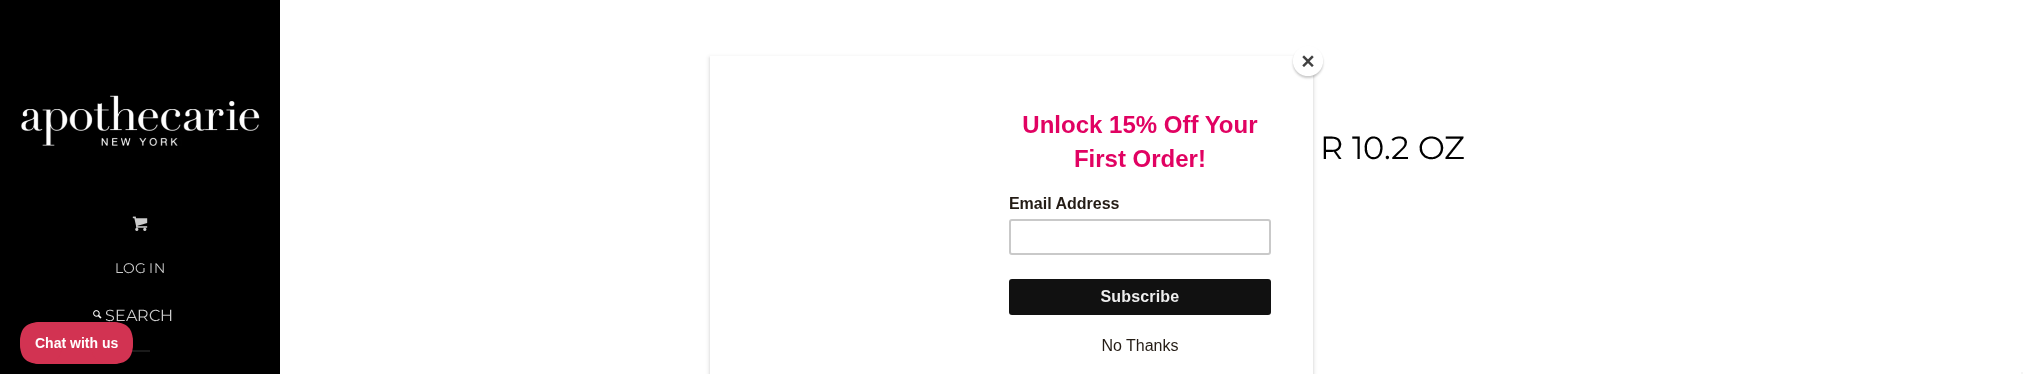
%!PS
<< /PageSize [2023 374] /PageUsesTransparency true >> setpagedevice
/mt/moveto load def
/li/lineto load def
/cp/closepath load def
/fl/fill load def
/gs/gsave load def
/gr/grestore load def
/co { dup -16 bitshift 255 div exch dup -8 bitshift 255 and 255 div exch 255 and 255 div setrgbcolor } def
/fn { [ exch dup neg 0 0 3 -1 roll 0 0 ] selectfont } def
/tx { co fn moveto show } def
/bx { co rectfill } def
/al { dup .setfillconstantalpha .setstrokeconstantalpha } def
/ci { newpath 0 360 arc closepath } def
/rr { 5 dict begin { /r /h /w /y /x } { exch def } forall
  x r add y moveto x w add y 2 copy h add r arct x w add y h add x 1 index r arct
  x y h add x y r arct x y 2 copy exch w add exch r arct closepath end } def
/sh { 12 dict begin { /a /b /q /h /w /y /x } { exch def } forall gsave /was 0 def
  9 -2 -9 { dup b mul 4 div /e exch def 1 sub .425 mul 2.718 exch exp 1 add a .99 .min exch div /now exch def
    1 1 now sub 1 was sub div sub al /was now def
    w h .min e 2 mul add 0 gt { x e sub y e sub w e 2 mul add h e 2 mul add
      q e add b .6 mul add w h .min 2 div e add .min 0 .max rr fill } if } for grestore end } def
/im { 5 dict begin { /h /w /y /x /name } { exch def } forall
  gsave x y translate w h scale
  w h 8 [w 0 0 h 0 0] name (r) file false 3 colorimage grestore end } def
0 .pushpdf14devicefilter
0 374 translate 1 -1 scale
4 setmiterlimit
0 0 2023 374 16#FFFFFF bx
16#000000 co
1293 48 30 30 15 1 .2 sh
gs
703 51 mt 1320 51 li 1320 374 li 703 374 li cp 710 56 mt 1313 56 li 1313 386 li 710 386 li cp eoclip newpath
710 58 603 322 0 2 .2 sh
gr
16#FFFFFF co
1308 61 15 ci fl
16#414141 co
1312 55.5 mt 1313.5 57 li 1304 67 li 1302.5 65.5 li cp fl
1302.5 57 mt 1304 55.5 li 1313.5 65.5 li 1312 67 li cp fl
(media/1.raw) 837 101 476 250 im
0 0 280 374 16#000000 bx
(media/2.raw) 21 95 239 51 im
(media/3.raw) 132 216 16 15 im
(media/4.raw) 93 310 9 9 im
130 350 20 2 16#1A1A1A bx
(media/5.raw) 20 322 113 42 im
2021 372 2 2 16#F5F5F5 bx
(R 10.2 OZ) 1320 159 /Montserrat-Thin 32 16#000000 tx
(LOG IN) 115 273 /Montserrat-Thin 14 16#CCCCCC tx
(SEARCH) 105 321 /Montserrat-Thin 16 16#CCCCCC tx
.poppdf14devicefilter showpage
